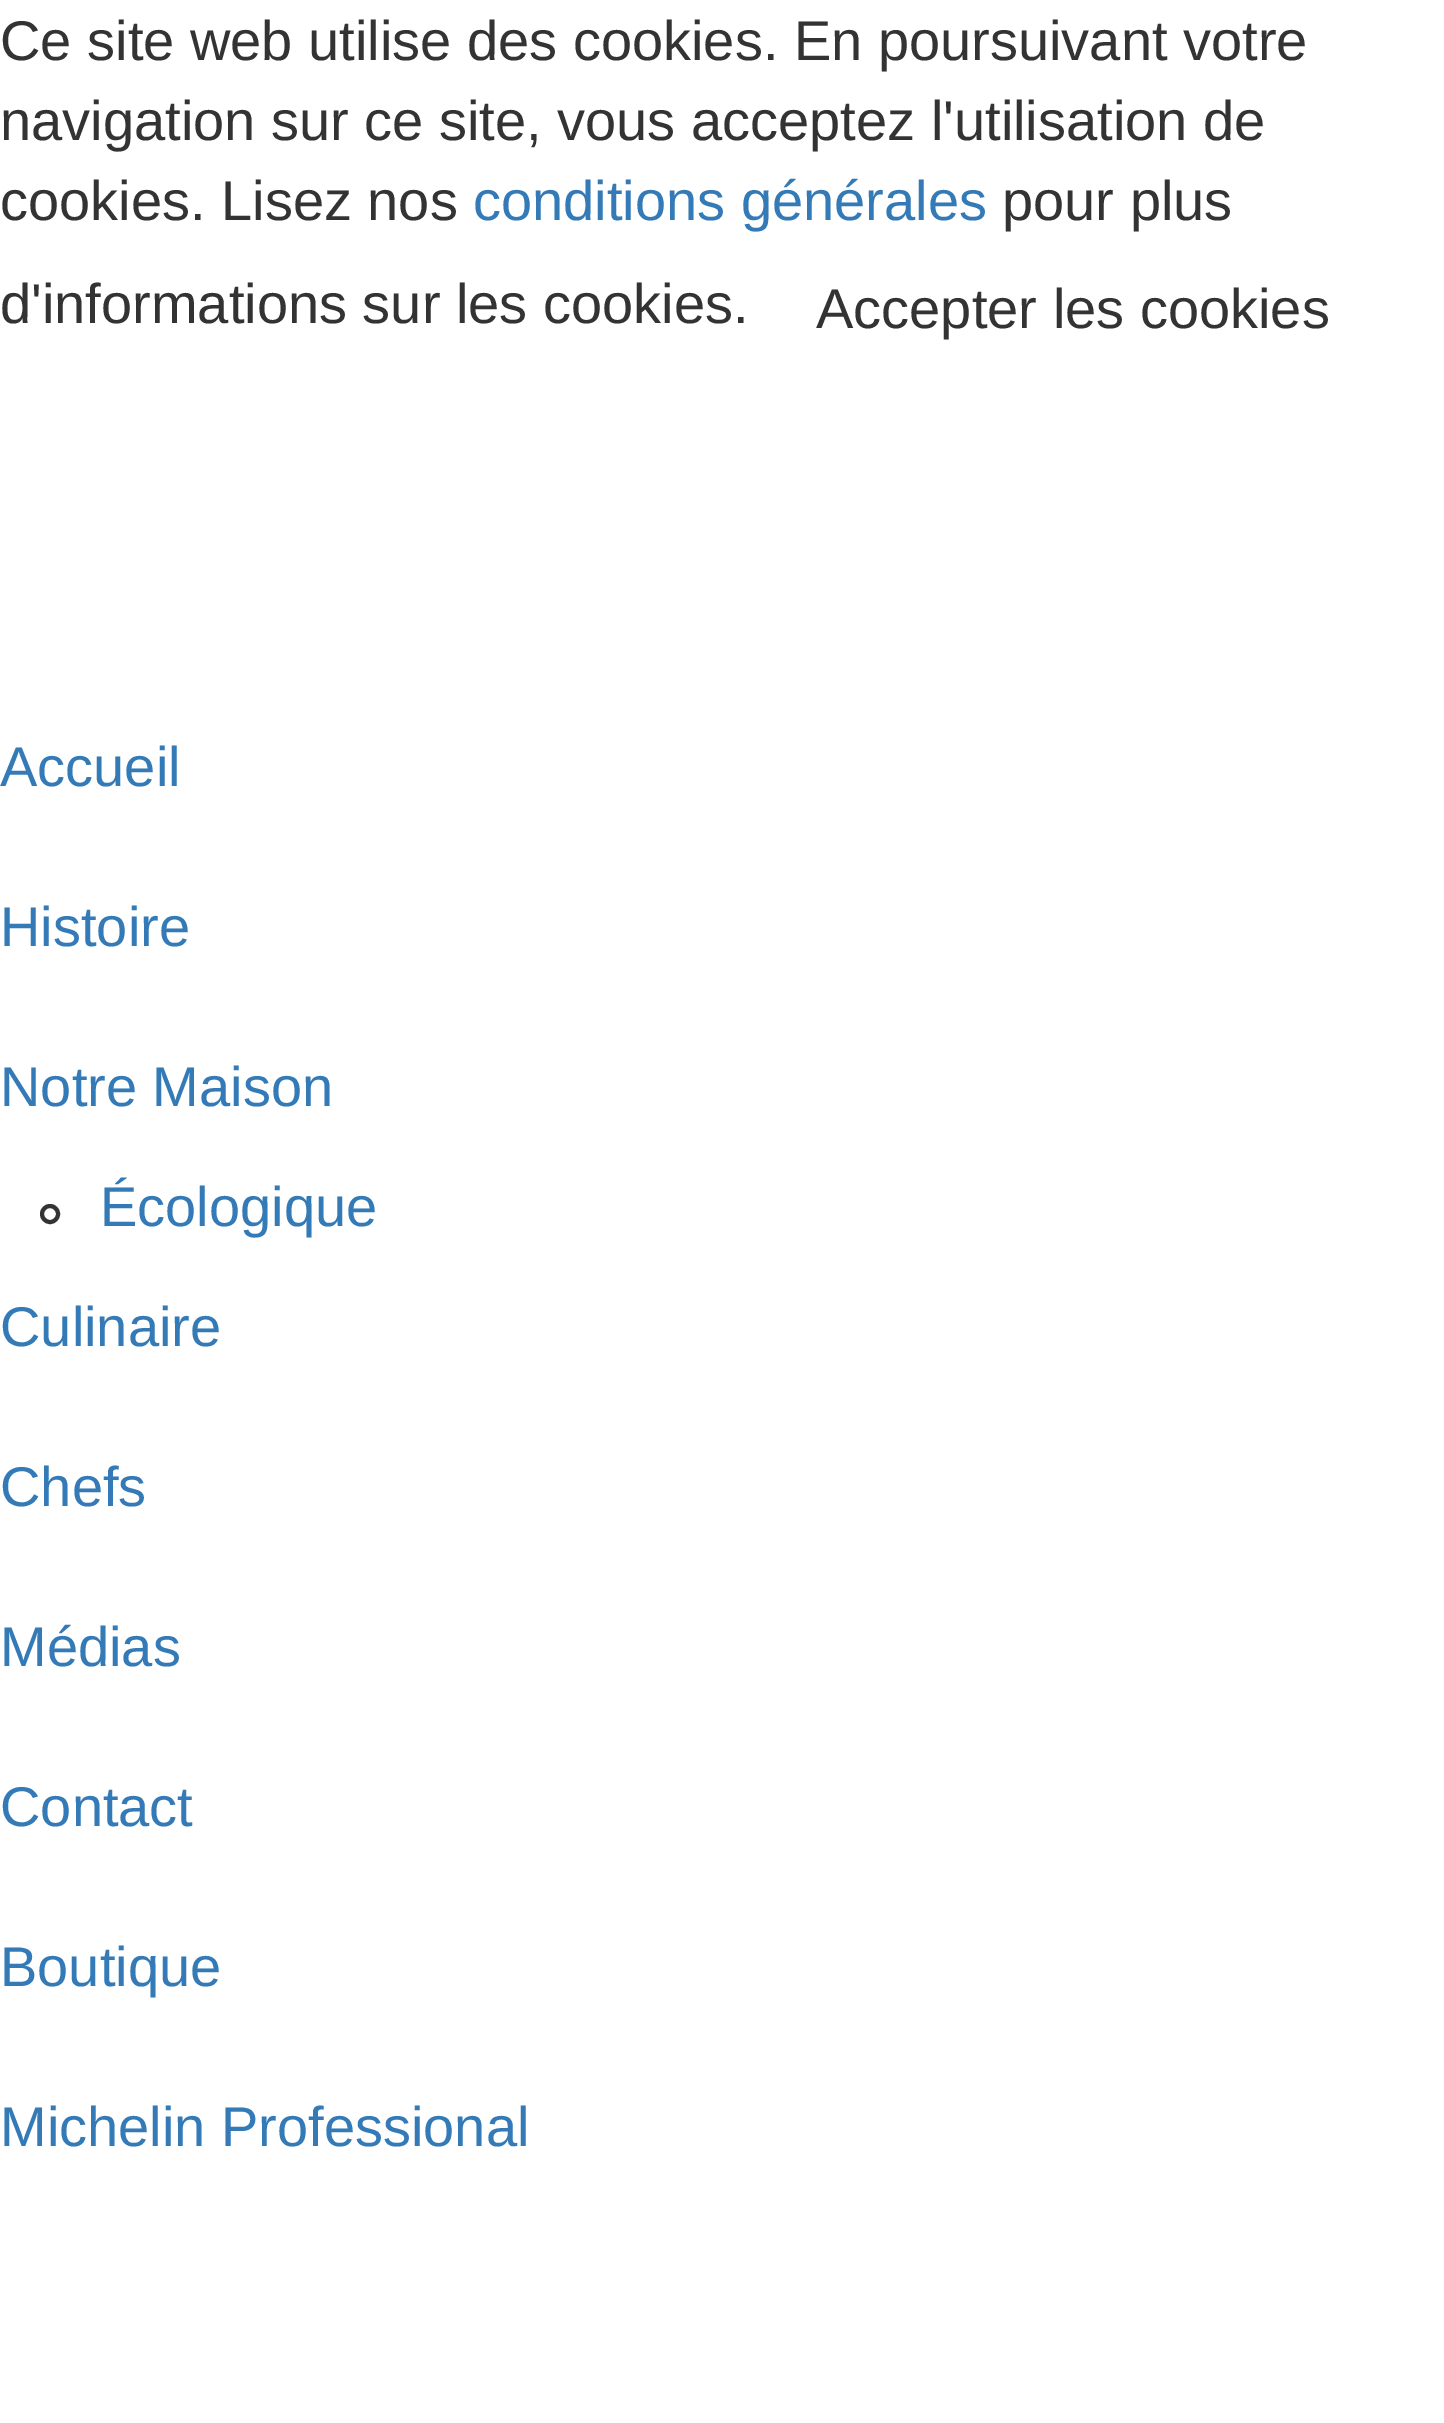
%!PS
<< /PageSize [1444 2423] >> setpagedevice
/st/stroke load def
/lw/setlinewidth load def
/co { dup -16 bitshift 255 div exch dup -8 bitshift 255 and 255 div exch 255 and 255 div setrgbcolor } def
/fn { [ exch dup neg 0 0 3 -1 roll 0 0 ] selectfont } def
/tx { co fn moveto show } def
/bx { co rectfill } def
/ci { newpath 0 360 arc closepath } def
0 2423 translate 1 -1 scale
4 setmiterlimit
0 0 1444 2423 16#FFFFFF bx
16#333333 co
4 lw
50 1214 8 ci st
(Ce site web utilise des cookies. En poursuivant votre) 0 60 /LiberationSans-Regular 56 16#333333 tx
(navigation sur ce site, vous acceptez l'utilisation de) 0 140 /LiberationSans-Regular 56 16#333333 tx
(cookies. Lisez nos) 0 220 /LiberationSans-Regular 56 16#333333 tx
(conditions générales) 473 220 /LiberationSans-Regular 56 16#337AB7 tx
(pour plus) 1002 220 /LiberationSans-Regular 56 16#333333 tx
(d'informations sur les cookies.) 0 323 /LiberationSans-Regular 56 16#333333 tx
(Accepter les cookies) 816 328 /LiberationSans-Regular 56 16#333333 tx
(Accueil) 0 786 /LiberationSans-Regular 56 16#337AB7 tx
(Histoire) 0 946 /LiberationSans-Regular 56 16#337AB7 tx
(Notre Maison) 0 1106 /LiberationSans-Regular 56 16#337AB7 tx
(Écologique) 100 1226 /LiberationSans-Regular 56 16#337AB7 tx
(Culinaire) 0 1346 /LiberationSans-Regular 56 16#337AB7 tx
(Chefs) 0 1506 /LiberationSans-Regular 56 16#337AB7 tx
(Médias) 0 1666 /LiberationSans-Regular 56 16#337AB7 tx
(Contact) 0 1826 /LiberationSans-Regular 56 16#337AB7 tx
(Boutique) 0 1986 /LiberationSans-Regular 56 16#337AB7 tx
(Michelin Professional) 0 2146 /LiberationSans-Regular 56 16#337AB7 tx
showpage
